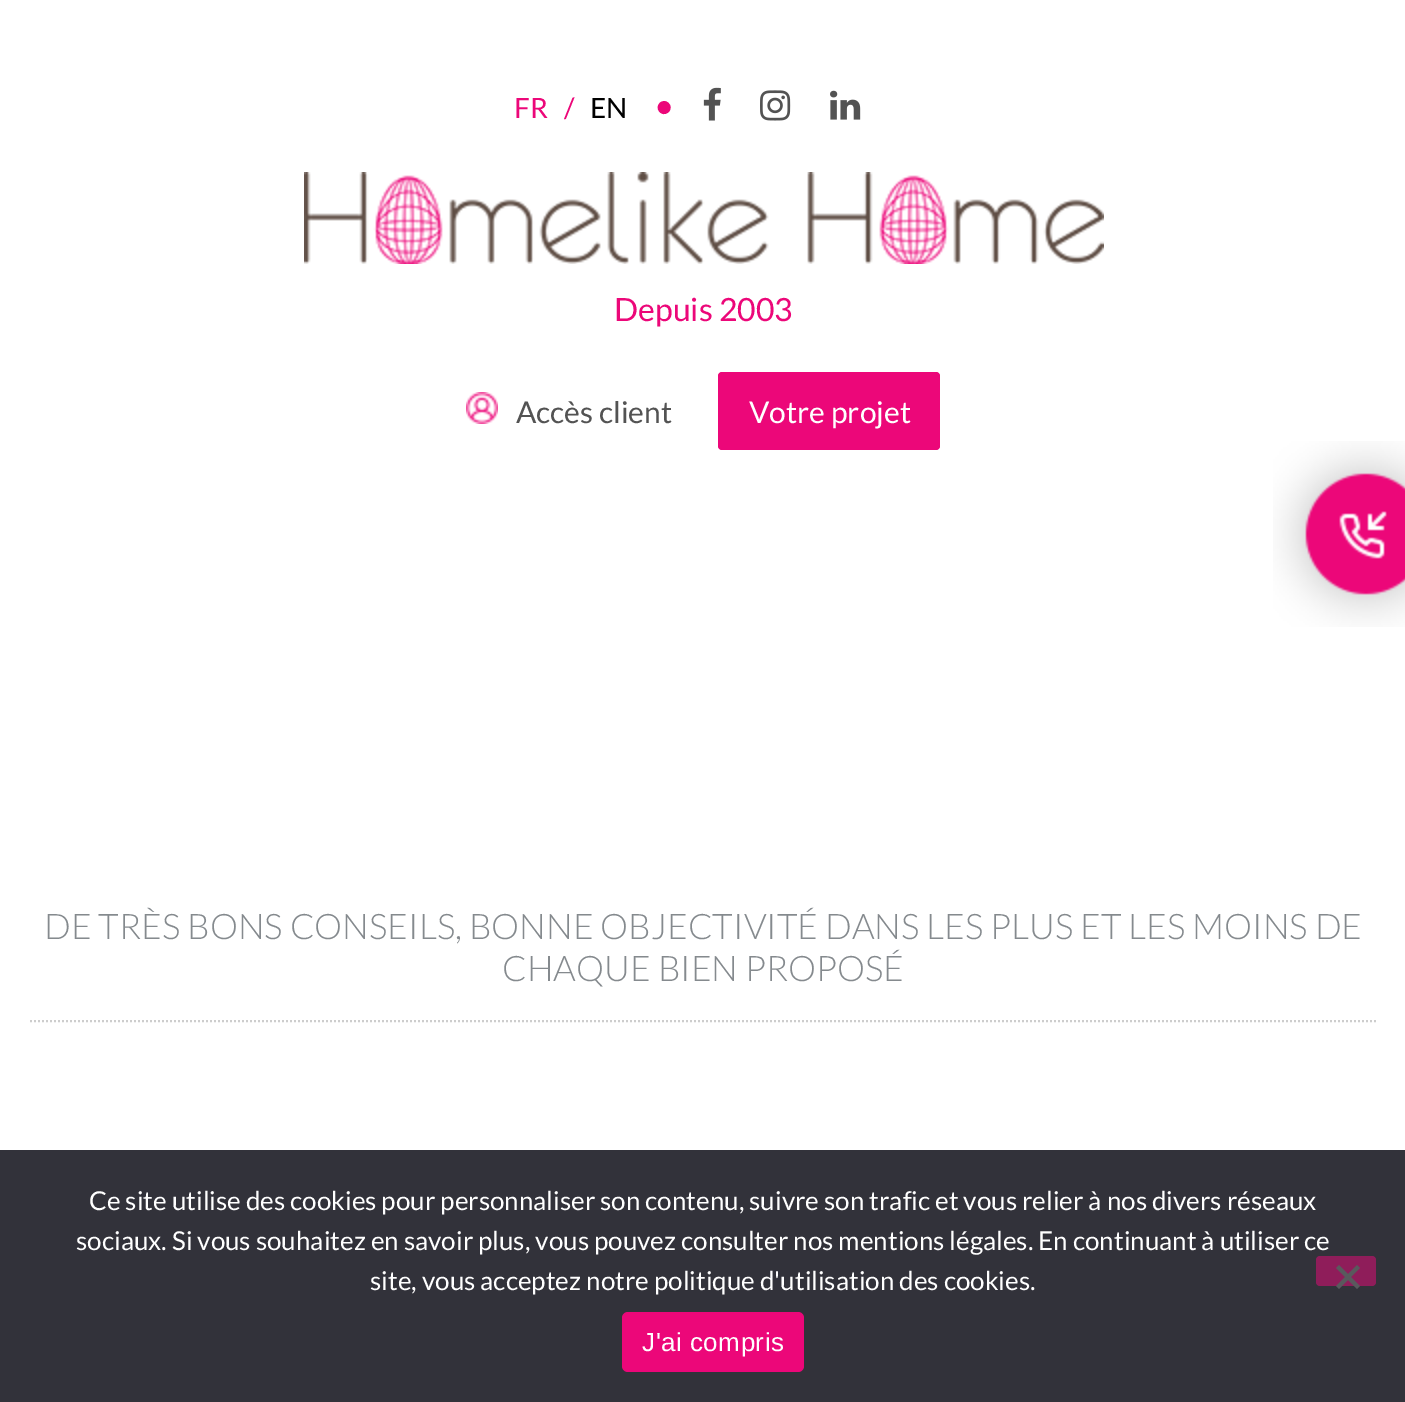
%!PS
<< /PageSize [1405 1402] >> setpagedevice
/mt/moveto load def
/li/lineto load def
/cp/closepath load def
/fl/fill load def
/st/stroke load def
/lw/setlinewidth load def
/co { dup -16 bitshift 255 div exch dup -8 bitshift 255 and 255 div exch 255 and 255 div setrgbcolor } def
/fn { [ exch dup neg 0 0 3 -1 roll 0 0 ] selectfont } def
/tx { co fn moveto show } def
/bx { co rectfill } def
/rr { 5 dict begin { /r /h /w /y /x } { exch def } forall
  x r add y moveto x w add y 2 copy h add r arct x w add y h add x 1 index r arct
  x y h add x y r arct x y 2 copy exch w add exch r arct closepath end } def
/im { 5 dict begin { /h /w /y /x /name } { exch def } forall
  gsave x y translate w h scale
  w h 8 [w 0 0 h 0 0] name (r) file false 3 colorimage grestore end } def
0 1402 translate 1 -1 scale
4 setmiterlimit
0 0 1405 1402 16#FFFFFF bx
(media/1.raw) 703 87 18 34 im
(media/2.raw) 760 90 31 31 im
(media/3.raw) 830 90 31 30 im
(media/4.raw) 304 172 800 92 im
(media/5.raw) 466 392 32 32 im
16#EC0779 co
718 372 222 78 4 rr fl
(media/6.raw) 1273 441 132 186 im
16#CDCDCD co
2 lw
[2 2] 0 setdash
30 1021 mt 1376 1021 li st
0 1150 1405 252 16#32323A bx
16#8F1D5A co
1316 1256 60 30 4 rr fl
16#59595D co
1357 1265 mt 1360 1268 li 1339 1289 li 1336 1286 li cp fl
1336 1268 mt 1339 1265 li 1360 1286 li 1357 1289 li cp fl
16#EC0779 co
622 1312 182 60 6 rr fl
(FR) 514 118 /Lato-Regular 28 16#EC0779 tx
(/) 564 118 /Lato-Regular 28 16#EC0779 tx
(EN) 590 118 /Lato-Regular 28 16#000000 tx
(•) 654 118 /Lato-Regular 35.2 16#EC0779 tx
(Depuis 2003) 614 321 /Lato-Regular 32 16#EC0779 tx
(Accès client) 516 423 /Lato-Regular 30 16#535353 tx
(Votre projet) 749 423 /Lato-Regular 30 16#FFFFFF tx
(DE TRÈS BONS CONSEILS, BONNE OBJECTIVITÉ DANS LES PLUS ET LES MOINS DE) 44 939 /Lato-Light 35.2 16#858A8E tx
(CHAQUE BIEN PROPOSÉ) 502 981 /Lato-Light 35.2 16#858A8E tx
(Ce site utilise des cookies pour personnaliser son contenu, suivre son trafic et vous relier à nos divers réseaux) 89 1210 /Lato-Regular 26 16#FFFFFF tx
(sociaux. Si vous souhaitez en savoir plus, vous pouvez consulter nos mentions légales. En continuant à utiliser ce) 76 1250 /Lato-Regular 26 16#FFFFFF tx
(site, vous acceptez notre politique d'utilisation des cookies.) 370 1290 /Lato-Regular 26 16#FFFFFF tx
/LiberationSans-Regular 26 fn
642 1351 mt .5 0 (J'ai compris) ashow
showpage
